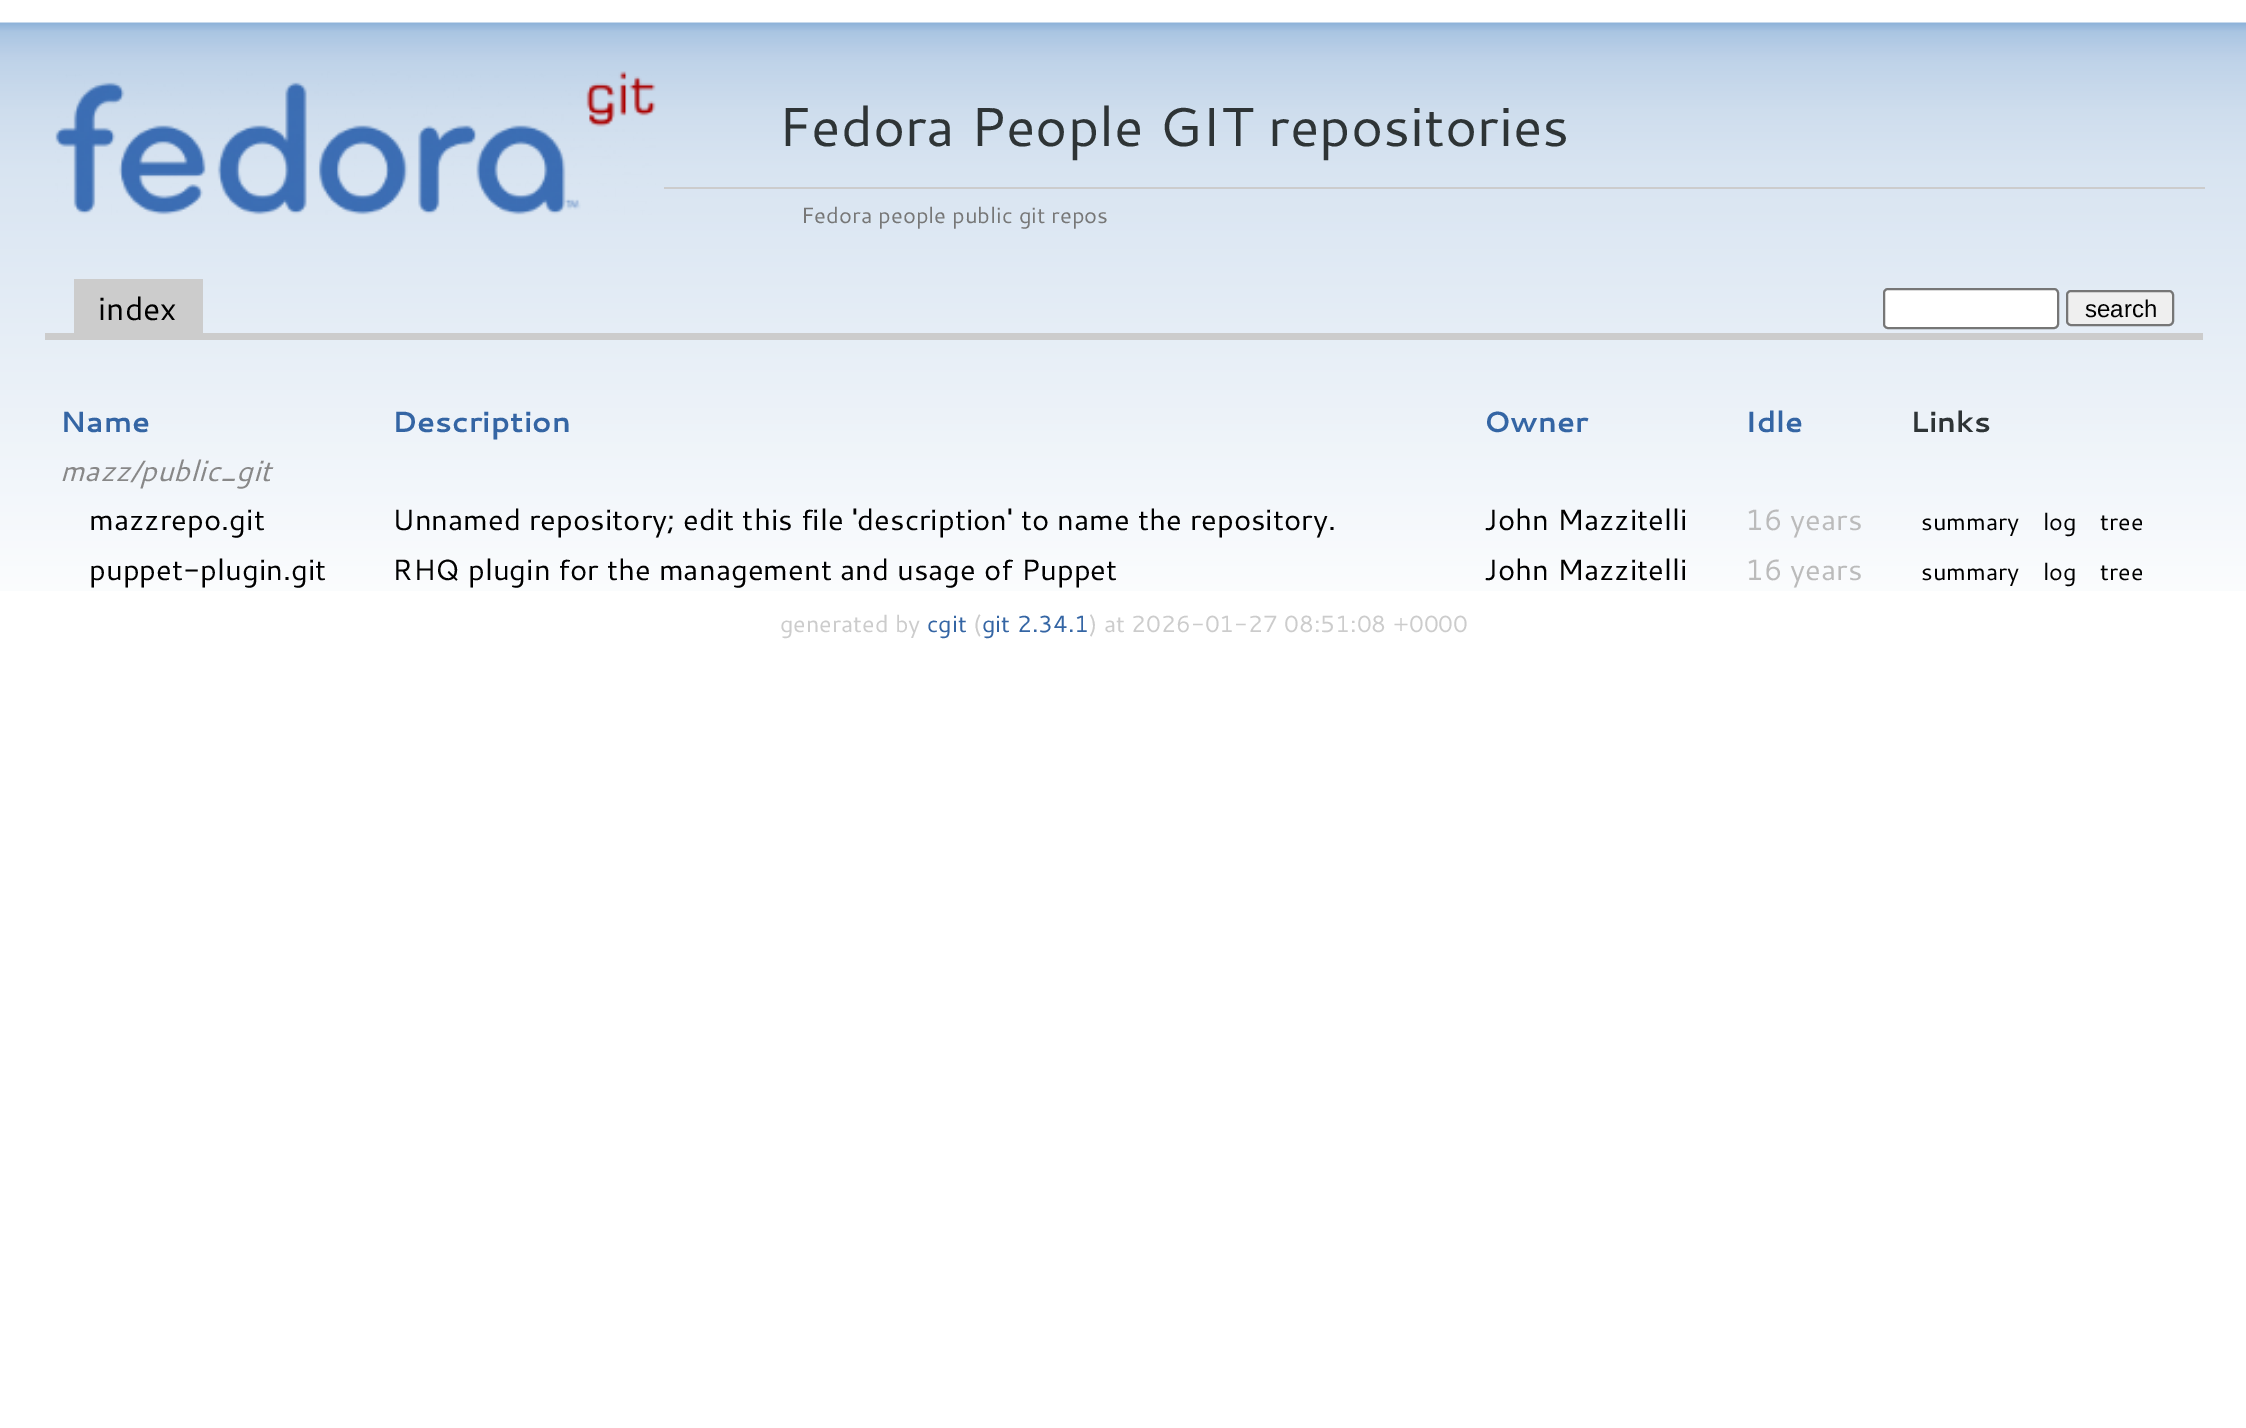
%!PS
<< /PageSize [2246 1428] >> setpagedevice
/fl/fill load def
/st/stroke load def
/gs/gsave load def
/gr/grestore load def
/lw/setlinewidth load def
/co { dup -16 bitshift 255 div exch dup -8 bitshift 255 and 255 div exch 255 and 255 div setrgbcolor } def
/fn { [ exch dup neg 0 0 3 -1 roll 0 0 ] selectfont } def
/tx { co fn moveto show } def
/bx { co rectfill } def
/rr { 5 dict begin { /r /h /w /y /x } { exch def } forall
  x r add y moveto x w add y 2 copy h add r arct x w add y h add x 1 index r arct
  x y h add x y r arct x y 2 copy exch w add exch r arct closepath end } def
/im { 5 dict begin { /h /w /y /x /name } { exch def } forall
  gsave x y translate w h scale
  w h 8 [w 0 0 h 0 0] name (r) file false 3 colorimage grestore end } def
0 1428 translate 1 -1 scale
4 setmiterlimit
0 0 2246 1428 16#FFFFFF bx
(media/1.raw) 0 22 2246 569 im
(media/2.raw) 55 71 601 144 im
664 187 1541 2 16#CCCCCC bx
74 279 129 54 16#CCCCCC bx
16#FFFFFF co
1884 289 174 39 4 rr gs fl gr
16#767676 co
2 lw
st
16#EFEFEF co
2067 291 106 34 4 rr gs fl gr
16#767676 co
st
45 333 2158 7 16#CCCCCC bx
(Fedora People GIT repositories) 778 146 /Cantarell-Regular 54.8 16#2E3436 tx
(Fedora people public git repos) 801 223 /Cantarell-Regular 22 16#777777 tx
(index) 98 320 /Cantarell-Regular 32 16#000000 tx
(search) 2085 317 /LiberationSans-Regular 24 16#000000 tx
(Name) 60 432 /Cantarell-Bold 29.25 16#3465A4 tx
(Description) 392 432 /Cantarell-Bold 29.25 16#3465A4 tx
(Owner) 1484 432 /Cantarell-Bold 29.25 16#3465A4 tx
(Idle) 1745 432 /Cantarell-Bold 29.25 16#3465A4 tx
(Links) 1910 432 /Cantarell-Bold 29.25 16#2E3436 tx
(mazz/public_git) 60 481 /Cantarell-Italic 29.25 16#888888 tx
(mazzrepo.git) 89 530 /Cantarell-Regular 29.25 16#000000 tx
(Unnamed repository; edit this file 'description' to name the repository.) 392 530 /Cantarell-Regular 29.25 16#000000 tx
(John Mazzitelli) 1484 530 /Cantarell-Regular 29.25 16#000000 tx
(16 years) 1745 530 /Cantarell-Regular 29.25 16#BBBBBB tx
(summary) 1921 530 /Cantarell-Regular 23.4 16#000000 tx
(log) 2043 530 /Cantarell-Regular 23.4 16#000000 tx
(tree) 2100 530 /Cantarell-Regular 23.4 16#000000 tx
(puppet-plugin.git) 89 580 /Cantarell-Regular 29.25 16#000000 tx
(RHQ plugin for the management and usage of Puppet) 392 580 /Cantarell-Regular 29.25 16#000000 tx
(John Mazzitelli) 1484 580 /Cantarell-Regular 29.25 16#000000 tx
(16 years) 1745 580 /Cantarell-Regular 29.25 16#BBBBBB tx
(summary) 1921 580 /Cantarell-Regular 23.4 16#000000 tx
(log) 2043 580 /Cantarell-Regular 23.4 16#000000 tx
(tree) 2100 580 /Cantarell-Regular 23.4 16#000000 tx
(generated by) 780 632 /Cantarell-Regular 23.4 16#CCCCCC tx
(cgit) 927 632 /Cantarell-Regular 23.4 16#3465A4 tx
(\() 973 632 /Cantarell-Regular 23.4 16#CCCCCC tx
(git 2.34.1) 982 632 /Cantarell-Regular 23.4 16#3465A4 tx
(\) at 2026-01-27 08:51:08 +0000) 1089 632 /Cantarell-Regular 23.4 16#CCCCCC tx
showpage
